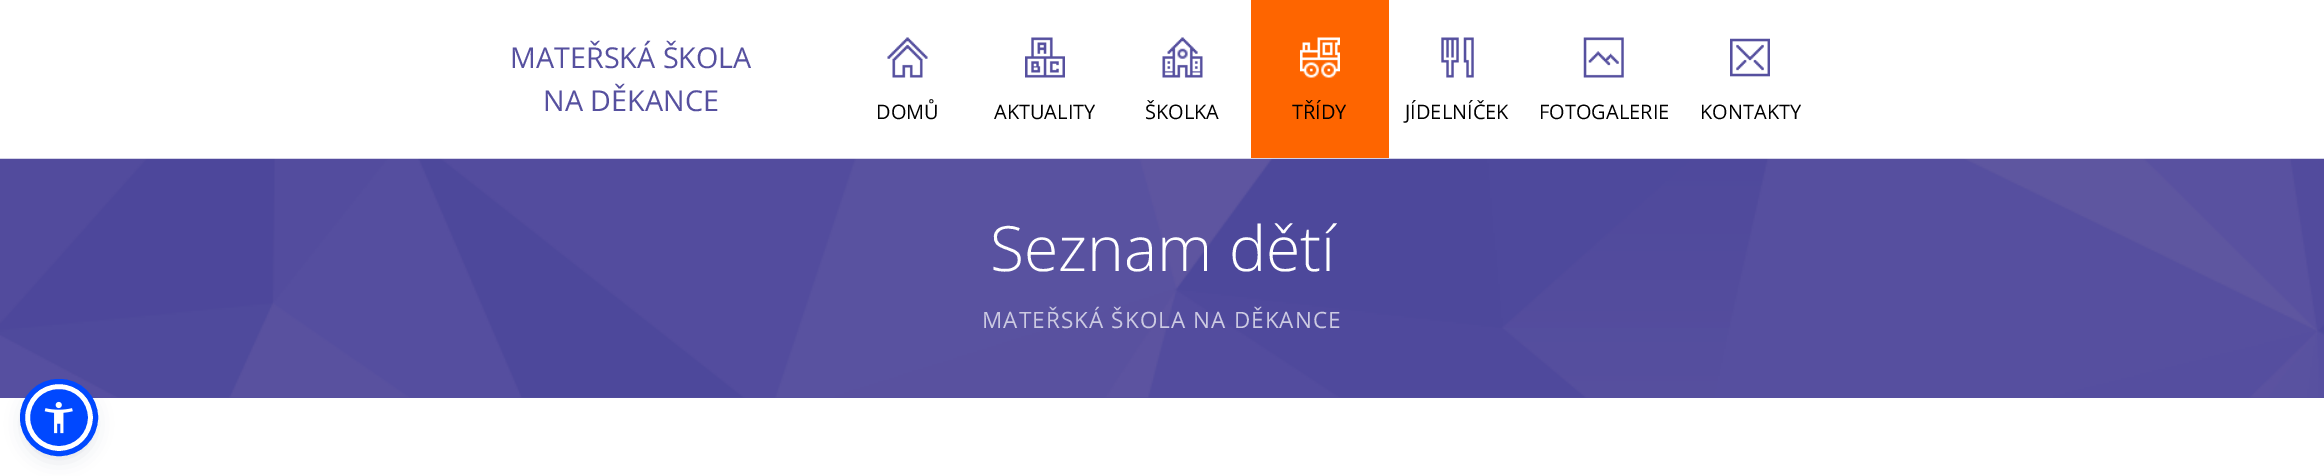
%!PS
<< /PageSize [2324 476] /PageUsesTransparency true >> setpagedevice
/mt/moveto load def
/fl/fill load def
/st/stroke load def
/gs/gsave load def
/gr/grestore load def
/lw/setlinewidth load def
/co { dup -16 bitshift 255 div exch dup -8 bitshift 255 and 255 div exch 255 and 255 div setrgbcolor } def
/fn { [ exch dup neg 0 0 3 -1 roll 0 0 ] selectfont } def
/tx { co fn moveto show } def
/bx { co rectfill } def
/al { dup .setfillconstantalpha .setstrokeconstantalpha } def
/rr { 5 dict begin { /r /h /w /y /x } { exch def } forall
  x r add y moveto x w add y 2 copy h add r arct x w add y h add x 1 index r arct
  x y h add x y r arct x y 2 copy exch w add exch r arct closepath end } def
/sh { 12 dict begin { /a /b /q /h /w /y /x } { exch def } forall gsave /was 0 def
  9 -2 -9 { dup b mul 4 div /e exch def 1 sub .425 mul 2.718 exch exp 1 add a .99 .min exch div /now exch def
    1 1 now sub 1 was sub div sub al /was now def
    w h .min e 2 mul add 0 gt { x e sub y e sub w e 2 mul add h e 2 mul add
      q e add b .6 mul add w h .min 2 div e add .min 0 .max rr fill } if } for grestore end } def
/im { 5 dict begin { /h /w /y /x /name } { exch def } forall
  gsave x y translate w h scale
  w h 8 [w 0 0 h 0 0] name (r) file false 3 colorimage grestore end } def
0 .pushpdf14devicefilter
0 476 translate 1 -1 scale
4 setmiterlimit
0 0 2324 476 16#FFFFFF bx
(media/1.raw) 887 37 41 41 im
(media/2.raw) 1025 37 40 41 im
(media/3.raw) 1162 37 41 41 im
1251 0 138 158 16#FE6500 bx
(media/4.raw) 1300 37 40 41 im
(media/5.raw) 1441 37 33 41 im
(media/6.raw) 1583 37 41 41 im
(media/7.raw) 1730 38 40 39 im
0 397 2324 1 16#56509F bx
(media/8.raw) 0 158 2324 240 im
16#5D6494 co
25 386 68 68 34 2.5 .2 sh
16#252C61 co
25 390 68 68 34 9.5 .15 sh
16#0048FF co
27.5 386.5 63 62 31 rr gs fl gr
16#FFFFFF co
5 lw
st
16#0048FF co
22.5 381.5 73 72 36 rr st
(media/9.raw) 44 401 29 33 im
(MATEŘSKÁ ŠKOLA) 510 68 /OpenSans-Regular 28.75 16#56509F tx
(NA DĚKANCE) 543 111 /OpenSans-Regular 28.75 16#56509F tx
(DOMŮ) 876 119 /OpenSans-Regular 20 16#000000 tx
(AKTUALITY) 994 119 /OpenSans-Regular 20 16#000000 tx
(ŠKOLKA) 1145 119 /OpenSans-Regular 20 16#000000 tx
(TŘÍDY) 1292 119 /OpenSans-Regular 20 16#000000 tx
(JÍDELNÍČEK) 1405 119 /OpenSans-Regular 20 16#000000 tx
(FOTOGALERIE) 1539 119 /OpenSans-Regular 20 16#000000 tx
(KONTAKTY) 1700 119 /OpenSans-Regular 20 16#000000 tx
(Seznam dětí) 990 271 /OpenSans-Light 62.5 16#FFFFFF tx
/OpenSans-Regular 22.5 fn
16#CCCAE2 co
982 328 mt 1.1 0 (MATEŘSKÁ ŠKOLA NA DĚKANCE) ashow
.poppdf14devicefilter showpage
